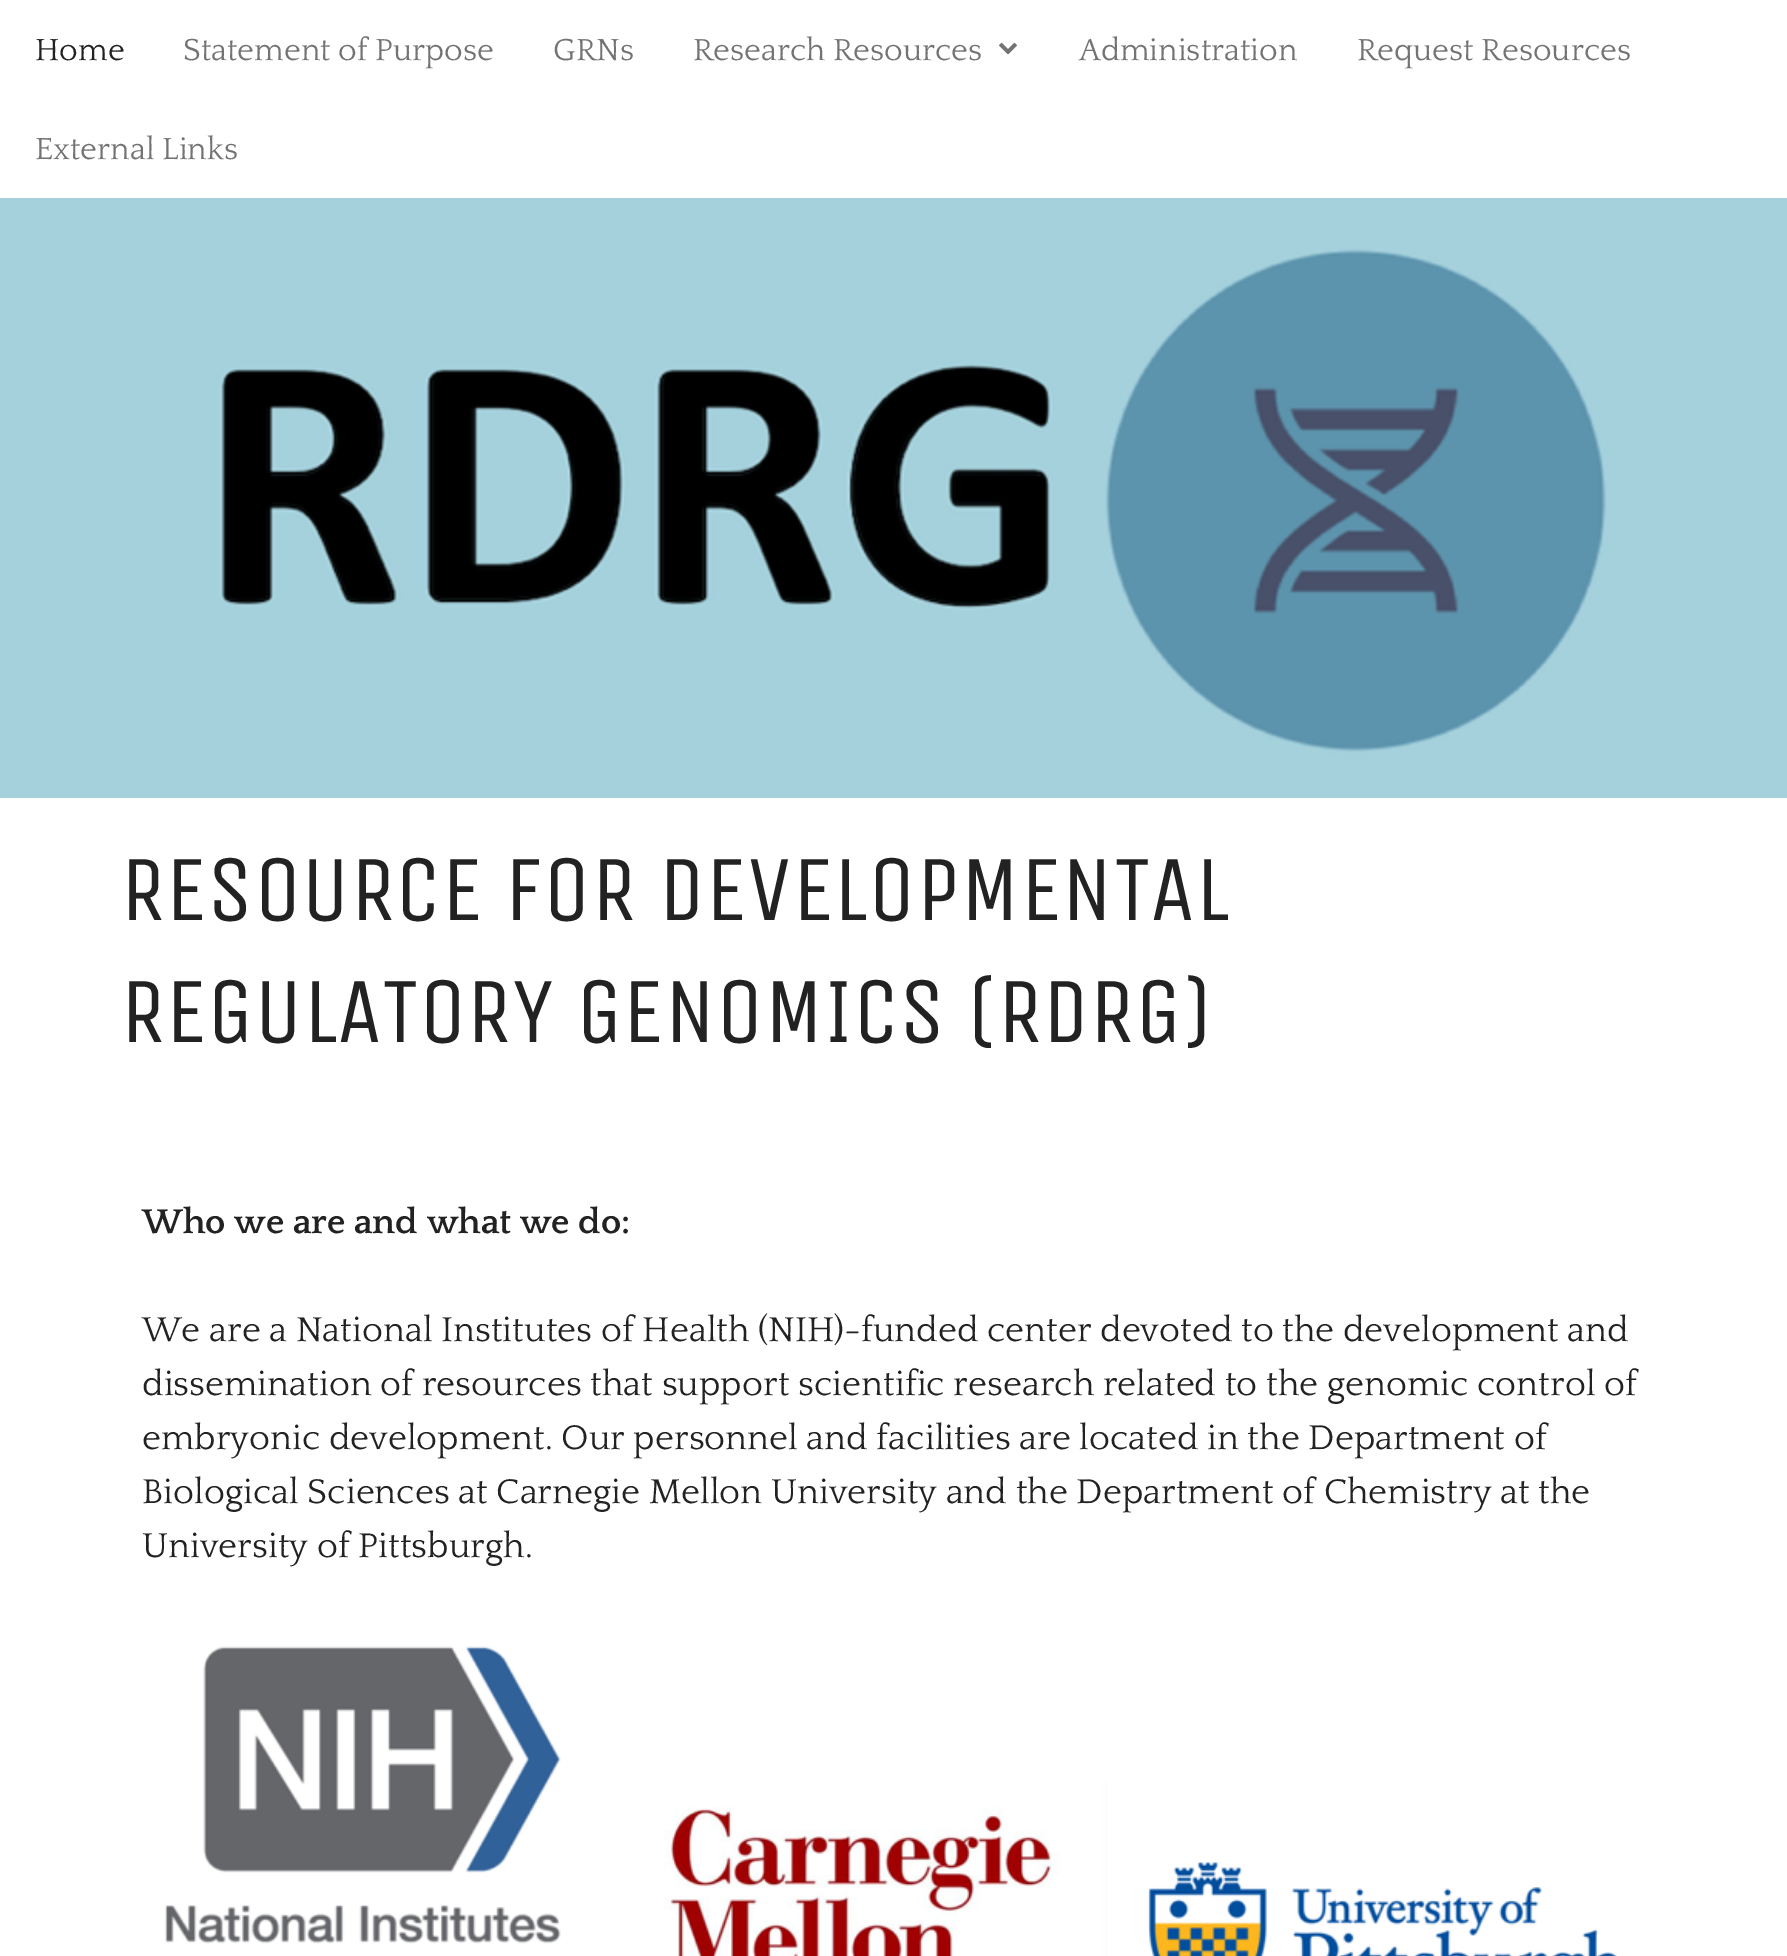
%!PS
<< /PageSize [1787 1956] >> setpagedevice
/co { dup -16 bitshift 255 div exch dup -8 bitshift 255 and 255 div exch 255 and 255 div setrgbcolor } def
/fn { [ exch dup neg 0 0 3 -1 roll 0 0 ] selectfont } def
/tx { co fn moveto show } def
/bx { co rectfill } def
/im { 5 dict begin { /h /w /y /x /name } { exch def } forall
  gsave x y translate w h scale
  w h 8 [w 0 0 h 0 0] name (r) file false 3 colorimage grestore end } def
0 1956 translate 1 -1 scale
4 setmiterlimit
0 0 1787 1956 16#FFFFFF bx
(media/1.raw) 999 42 18 13 im
(media/2.raw) 0 198 1787 600 im
(media/3.raw) 165 1646 1452 310 im
(Home) 35 60 /Quattrocento-Regular 32 16#222222 tx
(Statement of Purpose) 183 60 /Quattrocento-Regular 32 16#737373 tx
(GRNs) 553 60 /Quattrocento-Regular 32 16#737373 tx
(Research Resources) 693 60 /Quattrocento-Regular 32 16#737373 tx
(Administration) 1079 60 /Quattrocento-Regular 32 16#737373 tx
(Request Resources) 1357 60 /Quattrocento-Regular 32 16#737373 tx
(External Links) 35 159 /Quattrocento-Regular 32 16#737373 tx
(RESOURCE FOR DEVELOPMENTAL) 120 920 /UnicaOne-Regular 93.6 16#222222 tx
(REGULATORY GENOMICS \(RDRG\)) 120 1042 /UnicaOne-Regular 93.6 16#222222 tx
(Who we are and what we do:) 142 1233 /Quattrocento-Bold 36 16#222222 tx
(We are a National Institutes of Health \(NIH\)-funded center devoted to the development and) 142 1341 /Quattrocento-Regular 36 16#222222 tx
(dissemination of resources that support scientific research related to the genomic control of) 142 1395 /Quattrocento-Regular 36 16#222222 tx
(embryonic development. Our personnel and facilities are located in the Department of) 142 1449 /Quattrocento-Regular 36 16#222222 tx
(Biological Sciences at Carnegie Mellon University and the Department of Chemistry at the) 142 1503 /Quattrocento-Regular 36 16#222222 tx
(University of Pittsburgh.) 142 1557 /Quattrocento-Regular 36 16#222222 tx
showpage
